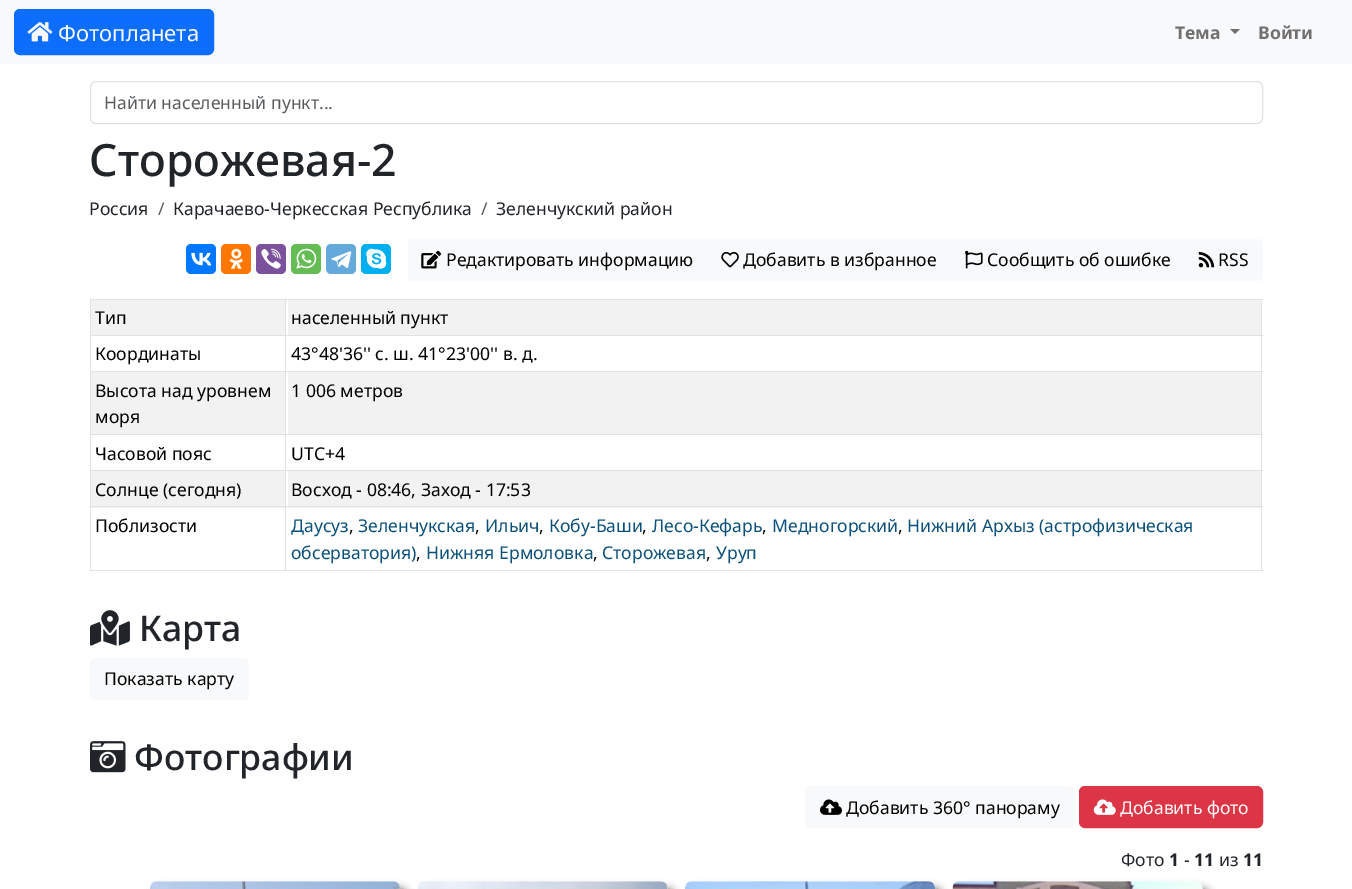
%!PS
<< /PageSize [1352 889] /PageUsesTransparency true >> setpagedevice
/mt/moveto load def
/li/lineto load def
/ct/curveto load def
/cp/closepath load def
/fl/fill load def
/st/stroke load def
/gs/gsave load def
/gr/grestore load def
/co { dup -16 bitshift 255 div exch dup -8 bitshift 255 and 255 div exch 255 and 255 div setrgbcolor } def
/fn { [ exch dup neg 0 0 3 -1 roll 0 0 ] selectfont } def
/tx { co fn moveto show } def
/bx { co rectfill } def
/al { dup .setfillconstantalpha .setstrokeconstantalpha } def
/rr { 5 dict begin { /r /h /w /y /x } { exch def } forall
  x r add y moveto x w add y 2 copy h add r arct x w add y h add x 1 index r arct
  x y h add x y r arct x y 2 copy exch w add exch r arct closepath end } def
/sh { 12 dict begin { /a /b /q /h /w /y /x } { exch def } forall gsave /was 0 def
  9 -2 -9 { dup b mul 4 div /e exch def 1 sub .425 mul 2.718 exch exp 1 add a .99 .min exch div /now exch def
    1 1 now sub 1 was sub div sub al /was now def
    w h .min e 2 mul add 0 gt { x e sub y e sub w e 2 mul add h e 2 mul add
      q e add b .6 mul add w h .min 2 div e add .min 0 .max rr fill } if } for grestore end } def
/im { 5 dict begin { /h /w /y /x /name } { exch def } forall
  gsave x y translate w h scale
  w h 8 [w 0 0 h 0 0] name (r) file false 3 colorimage grestore end } def
0 .pushpdf14devicefilter
0 889 translate 1 -1 scale
4 setmiterlimit
0 0 1352 889 16#FFFFFF bx
0 0 1352 64 16#F8F9FA bx
16#0D6EFD co
14.5 9.5 199 45 5.5 rr gs fl gr
st
(media/1.raw) 27 22 26 20 im
16#707071 co
1230 29 mt 1240 29 li 1235 34 li cp fl
16#DEE2E6 co
90.5 81.5 1172 42 5.5 rr st
16#0077FF co
186 244 30 30 5 rr fl
(media/2.raw) 191 252 21 14 im
16#FF7700 co
221 244 30 30 5 rr fl
(media/3.raw) 229 248 14 21 im
16#7B519D co
256 244 30 30 5 rr fl
(media/4.raw) 261 248 20 21 im
16#65BC54 co
291 244 30 30 5 rr fl
(media/5.raw) 296 248 21 21 im
16#64A9DC co
326 244 30 30 5 rr fl
(media/6.raw) 331 251 21 17 im
16#00AFF0 co
361 244 30 30 5 rr fl
(media/7.raw) 366 248 21 21 im
408 239 776 42 16#F8F9FA bx
(media/8.raw) 421 250 20 19 im
(media/9.raw) 721 252 18 16 im
(media/10.raw) 965 250 18 19 im
1184 239 mt 1257 239 li 1260.5 239 1263 241.5 1263 245 ct 1263 275 li 1263 278.5 1260.5 281 1257 281 ct 1184 281 li cp fl
(media/11.raw) 1198 252 17 16 im
90 299 1173 1 16#DEE2E6 bx
91 300 194 35 16#F2F2F2 bx
288 300 973 35 16#F2F2F2 bx
90 335 1173 1 16#DEE2E6 bx
90 371 1173 1 16#DEE2E6 bx
91 372 194 62 16#F2F2F2 bx
288 372 973 62 16#F2F2F2 bx
90 434 1173 1 16#DEE2E6 bx
90 470 1173 1 16#DEE2E6 bx
91 471 194 37 16#F2F2F2 bx
288 471 973 37 16#F2F2F2 bx
90 506 1173 1 16#DEE2E6 bx
90 570 1173 1 16#DEE2E6 bx
90 299 1 272 16#DEE2E6 bx
1261 299 1 272 16#DEE2E6 bx
285 299 1 272 16#DEE2E6 bx
(media/12.raw) 90 610 40 36 im
16#F8F9FA co
90 658 159 42 6 rr fl
(media/13.raw) 90 741 36 32 im
805 786 269 42 6 rr fl
(media/14.raw) 820 799 22 16 im
16#DC3545 co
1079.5 786.5 183 41 5.5 rr gs fl gr
st
(media/15.raw) 1093 799 23 16 im
16#000000 co
155 888 253 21 8 4 .51 sh
(media/16.raw) 150 881 250 8 im
423 888 252 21 8 4 .51 sh
(media/17.raw) 417 881 251 8 im
690 888 253 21 8 4 .51 sh
(media/18.raw) 685 881 250 8 im
958 888 252 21 8 4 .51 sh
(media/19.raw) 952 881 251 8 im
(Фотопланета) 58 41 /NotoSans-Regular 22 16#F8F9FA tx
(Тема) 1175 39 /NotoSans-Bold 17.6 16#707071 tx
(Войти) 1258 39 /NotoSans-Bold 17.6 16#707071 tx
(Найти населенный пункт...) 104 109 /NotoSans-Regular 17.6 16#595C5F tx
(Сторожевая-2) 89 176 /NotoSans-Medium 44.5 16#212529 tx
(Россия) 89 215 /NotoSans-Regular 17.6 16#212529 tx
(/) 158 215 /NotoSans-Regular 17.6 16#595C5F tx
(Карачаево-Черкесская Республика) 173 215 /NotoSans-Regular 17.6 16#212529 tx
(/) 481 215 /NotoSans-Regular 17.6 16#595C5F tx
(Зеленчукский район) 496 215 /NotoSans-Regular 17.6 16#212529 tx
(Редактировать информацию) 446 266 /NotoSans-Regular 17.6 16#000000 tx
(Добавить в избранное) 743 266 /NotoSans-Regular 17.6 16#000000 tx
(Сообщить об ошибке) 987 266 /NotoSans-Regular 17.6 16#000000 tx
(RSS) 1218 266 /NotoSans-Regular 17.6 16#000000 tx
(Тип) 95 324 /NotoSans-Regular 17.6 16#000000 tx
(населенный пункт) 291 324 /NotoSans-Regular 17.6 16#000000 tx
(Координаты) 95 360 /NotoSans-Regular 17.6 16#000000 tx
(43°48'36'' с. ш. 41°23'00'' в. д.) 291 360 /NotoSans-Regular 17.6 16#000000 tx
(Высота над уровнем) 95 397 /NotoSans-Regular 17.6 16#000000 tx
(моря) 95 423 /NotoSans-Regular 17.6 16#000000 tx
(1 006 метров) 291 397 /NotoSans-Regular 17.6 16#000000 tx
(Часовой пояс) 95 460 /NotoSans-Regular 17.6 16#000000 tx
(UTC+4) 291 460 /NotoSans-Regular 17.6 16#000000 tx
(Солнце \(сегодня\)) 95 496 /NotoSans-Regular 17.6 16#000000 tx
(Восход - 08:46, Заход - 17:53) 291 496 /NotoSans-Regular 17.6 16#000000 tx
(Поблизости) 95 532 /NotoSans-Regular 17.6 16#000000 tx
(Даусуз) 291 532 /NotoSans-Regular 17.6 16#0A507A tx
(,) 349 532 /NotoSans-Regular 17.6 16#000000 tx
(Зеленчукская) 358 532 /NotoSans-Regular 17.6 16#0A507A tx
(,) 475 532 /NotoSans-Regular 17.6 16#000000 tx
(Ильич) 485 532 /NotoSans-Regular 17.6 16#0A507A tx
(,) 539 532 /NotoSans-Regular 17.6 16#000000 tx
(Кобу-Баши) 549 532 /NotoSans-Regular 17.6 16#0A507A tx
(,) 642 532 /NotoSans-Regular 17.6 16#000000 tx
(Лесо-Кефарь) 652 532 /NotoSans-Regular 17.6 16#0A507A tx
(,) 762 532 /NotoSans-Regular 17.6 16#000000 tx
(Медногорский) 772 532 /NotoSans-Regular 17.6 16#0A507A tx
(,) 898 532 /NotoSans-Regular 17.6 16#000000 tx
(Нижний Архыз \(астрофизическая) 907 532 /NotoSans-Regular 17.6 16#0A507A tx
(обсерватория\)) 291 559 /NotoSans-Regular 17.6 16#0A507A tx
(,) 416 559 /NotoSans-Regular 17.6 16#000000 tx
(Нижняя Ермоловка) 426 559 /NotoSans-Regular 17.6 16#0A507A tx
(,) 593 559 /NotoSans-Regular 17.6 16#000000 tx
(Сторожевая) 602 559 /NotoSans-Regular 17.6 16#0A507A tx
(,) 706 559 /NotoSans-Regular 17.6 16#000000 tx
(Уруп) 716 559 /NotoSans-Regular 17.6 16#0A507A tx
(Карта) 139 641 /NotoSans-Medium 35.5 16#212529 tx
(Показать карту) 104 685 /NotoSans-Regular 17.6 16#000000 tx
(Фотографии) 134 770 /NotoSans-Medium 35.5 16#212529 tx
(Добавить 360° панораму) 846 814 /NotoSans-Regular 17.6 16#000000 tx
(Добавить фото) 1120 814 /NotoSans-Regular 17.6 16#FFFFFF tx
(Фото) 1121 866 /NotoSans-Regular 17.6 16#212529 tx
(1) 1169 866 /NotoSans-Bold 17.6 16#212529 tx
(-) 1184 866 /NotoSans-Regular 17.6 16#212529 tx
(11) 1194 866 /NotoSans-Bold 17.6 16#212529 tx
(из) 1219 866 /NotoSans-Regular 17.6 16#212529 tx
(11) 1243 866 /NotoSans-Bold 17.6 16#212529 tx
.poppdf14devicefilter showpage
